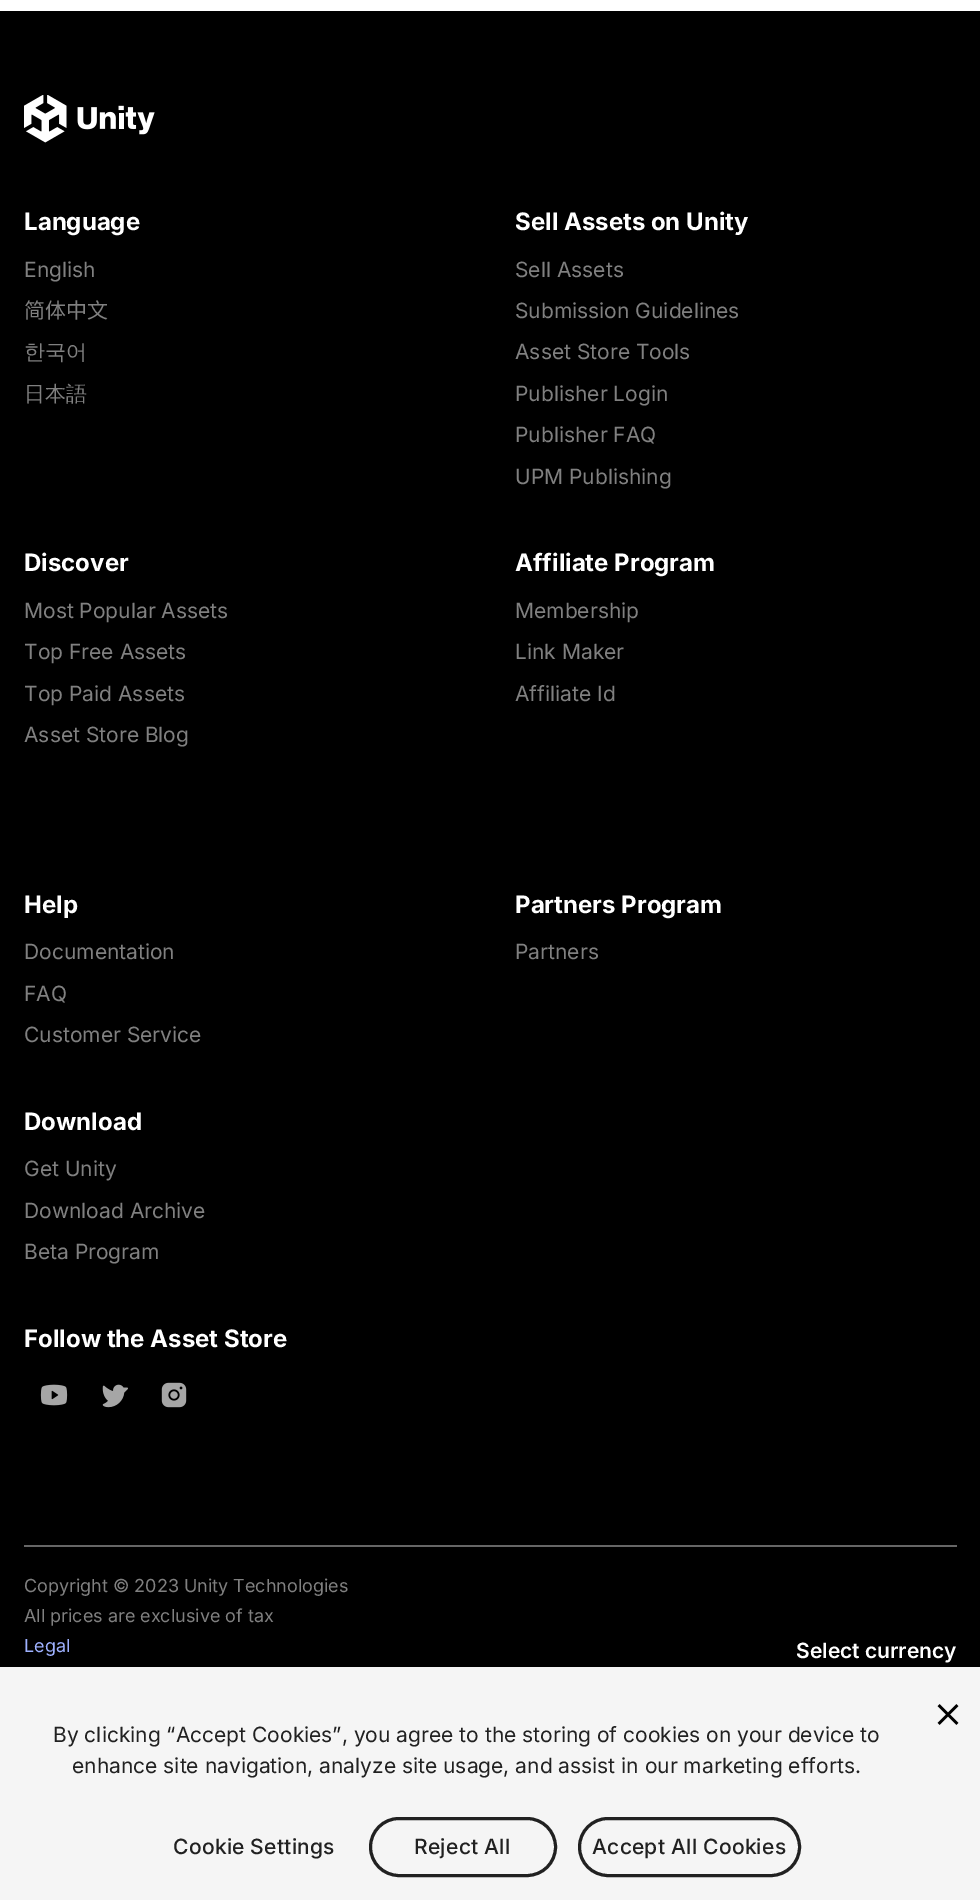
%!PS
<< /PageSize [980 1900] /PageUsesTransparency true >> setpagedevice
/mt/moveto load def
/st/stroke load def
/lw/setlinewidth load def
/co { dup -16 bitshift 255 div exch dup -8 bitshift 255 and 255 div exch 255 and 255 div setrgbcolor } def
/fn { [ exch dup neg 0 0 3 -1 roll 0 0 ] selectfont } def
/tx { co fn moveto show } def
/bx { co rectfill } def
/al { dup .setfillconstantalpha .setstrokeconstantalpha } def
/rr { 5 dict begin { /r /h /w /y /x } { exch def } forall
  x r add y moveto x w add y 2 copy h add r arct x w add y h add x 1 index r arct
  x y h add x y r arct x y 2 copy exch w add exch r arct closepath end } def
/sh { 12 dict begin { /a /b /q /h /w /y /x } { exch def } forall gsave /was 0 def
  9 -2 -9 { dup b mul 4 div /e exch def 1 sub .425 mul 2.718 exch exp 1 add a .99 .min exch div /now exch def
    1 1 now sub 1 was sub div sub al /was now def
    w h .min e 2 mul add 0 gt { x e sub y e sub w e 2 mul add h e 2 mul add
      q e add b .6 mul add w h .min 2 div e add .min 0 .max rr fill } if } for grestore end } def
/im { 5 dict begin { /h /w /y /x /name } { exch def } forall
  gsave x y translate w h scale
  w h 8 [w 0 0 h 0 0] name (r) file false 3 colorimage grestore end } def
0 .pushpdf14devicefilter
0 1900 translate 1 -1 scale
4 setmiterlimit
0 0 980 1900 16#FFFFFF bx
0 11 980 1656 16#000000 bx
(media/1.raw) 24 95 131 48 im
24 1545 933 2 16#666666 bx
(media/2.raw) 40 1384 28 22 im
(media/3.raw) 102 1384 26 24 im
(media/4.raw) 161 1382 26 26 im
16#000000 co
0 1667 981 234 0 13.5 .2 sh
0 1667 980 233 16#F5F5F5 bx
(media/5.raw) 937 1704 22 21 im
16#212121 co
3 lw
370.5 1818.5 185 57 28.5 rr st
579.5 1818.5 220 57 28.5 rr st
(Language) 24 230 /Inter-Bold 24 16#FFFFFF tx
(English) 24 277 /Inter-Regular 21 16#808080 tx
(简体中文) 24 318 /NotoSansCJKSC-Regular 21 16#808080 tx
(한국어) 24 359 /WenQuanYiZenHei-Medium 21 16#808080 tx
(日本語) 24 401 /WenQuanYiZenHei-Medium 21 16#808080 tx
(Sell Assets on Unity) 515 230 /Inter-Bold 24 16#FFFFFF tx
(Sell Assets) 515 277 /Inter-Regular 21 16#808080 tx
(Submission Guidelines) 515 318 /Inter-Regular 21 16#808080 tx
(Asset Store Tools) 515 359 /Inter-Regular 21 16#808080 tx
(Publisher Login) 515 401 /Inter-Regular 21 16#808080 tx
(Publisher FAQ) 515 442 /Inter-Regular 21 16#808080 tx
(UPM Publishing) 515 484 /Inter-Regular 21 16#808080 tx
(Discover) 24 571 /Inter-Bold 24 16#FFFFFF tx
(Most Popular Assets) 24 618 /Inter-Regular 21 16#808080 tx
(Top Free Assets) 24 659 /Inter-Regular 21 16#808080 tx
(Top Paid Assets) 24 701 /Inter-Regular 21 16#808080 tx
(Asset Store Blog) 24 742 /Inter-Regular 21 16#808080 tx
(Affiliate Program) 515 571 /Inter-Bold 24 16#FFFFFF tx
(Membership) 515 618 /Inter-Regular 21 16#808080 tx
(Link Maker) 515 659 /Inter-Regular 21 16#808080 tx
(Affiliate Id) 515 701 /Inter-Regular 21 16#808080 tx
(Help) 24 913 /Inter-Bold 24 16#FFFFFF tx
(Documentation) 24 959 /Inter-Regular 21 16#808080 tx
(FAQ) 24 1001 /Inter-Regular 21 16#808080 tx
(Customer Service) 24 1042 /Inter-Regular 21 16#808080 tx
(Partners Program) 515 913 /Inter-Bold 24 16#FFFFFF tx
(Partners) 515 959 /Inter-Regular 21 16#808080 tx
(Download) 24 1130 /Inter-Bold 24 16#FFFFFF tx
(Get Unity) 24 1176 /Inter-Regular 21 16#808080 tx
(Download Archive) 24 1218 /Inter-Regular 21 16#808080 tx
(Beta Program) 24 1259 /Inter-Regular 21 16#808080 tx
(Follow the Asset Store) 24 1347 /Inter-Bold 24 16#FFFFFF tx
(Copyright © 2023 Unity Technologies) 24 1592 /Inter-Regular 18 16#808080 tx
(All prices are exclusive of tax) 24 1622 /Inter-Regular 18 16#808080 tx
(Legal) 24 1652 /Inter-Regular 18 16#9EB1FF tx
(Select currency) 796 1658 /Inter-SemiBold 21 16#FFFFFF tx
(By clicking “Accept Cookies”, you agree to the storing of cookies on your device to) 53 1742 /Inter-Regular 21 16#212121 tx
(enhance site navigation, analyze site usage, and assist in our marketing efforts.) 72 1773 /Inter-Regular 21 16#212121 tx
/Inter-Medium 21 fn
173 1854 mt .25 0 (Cookie Settings) ashow
414 1854 mt .25 0 (Reject All) ashow
592 1854 mt .25 0 (Accept All Cookies) ashow
.poppdf14devicefilter showpage
